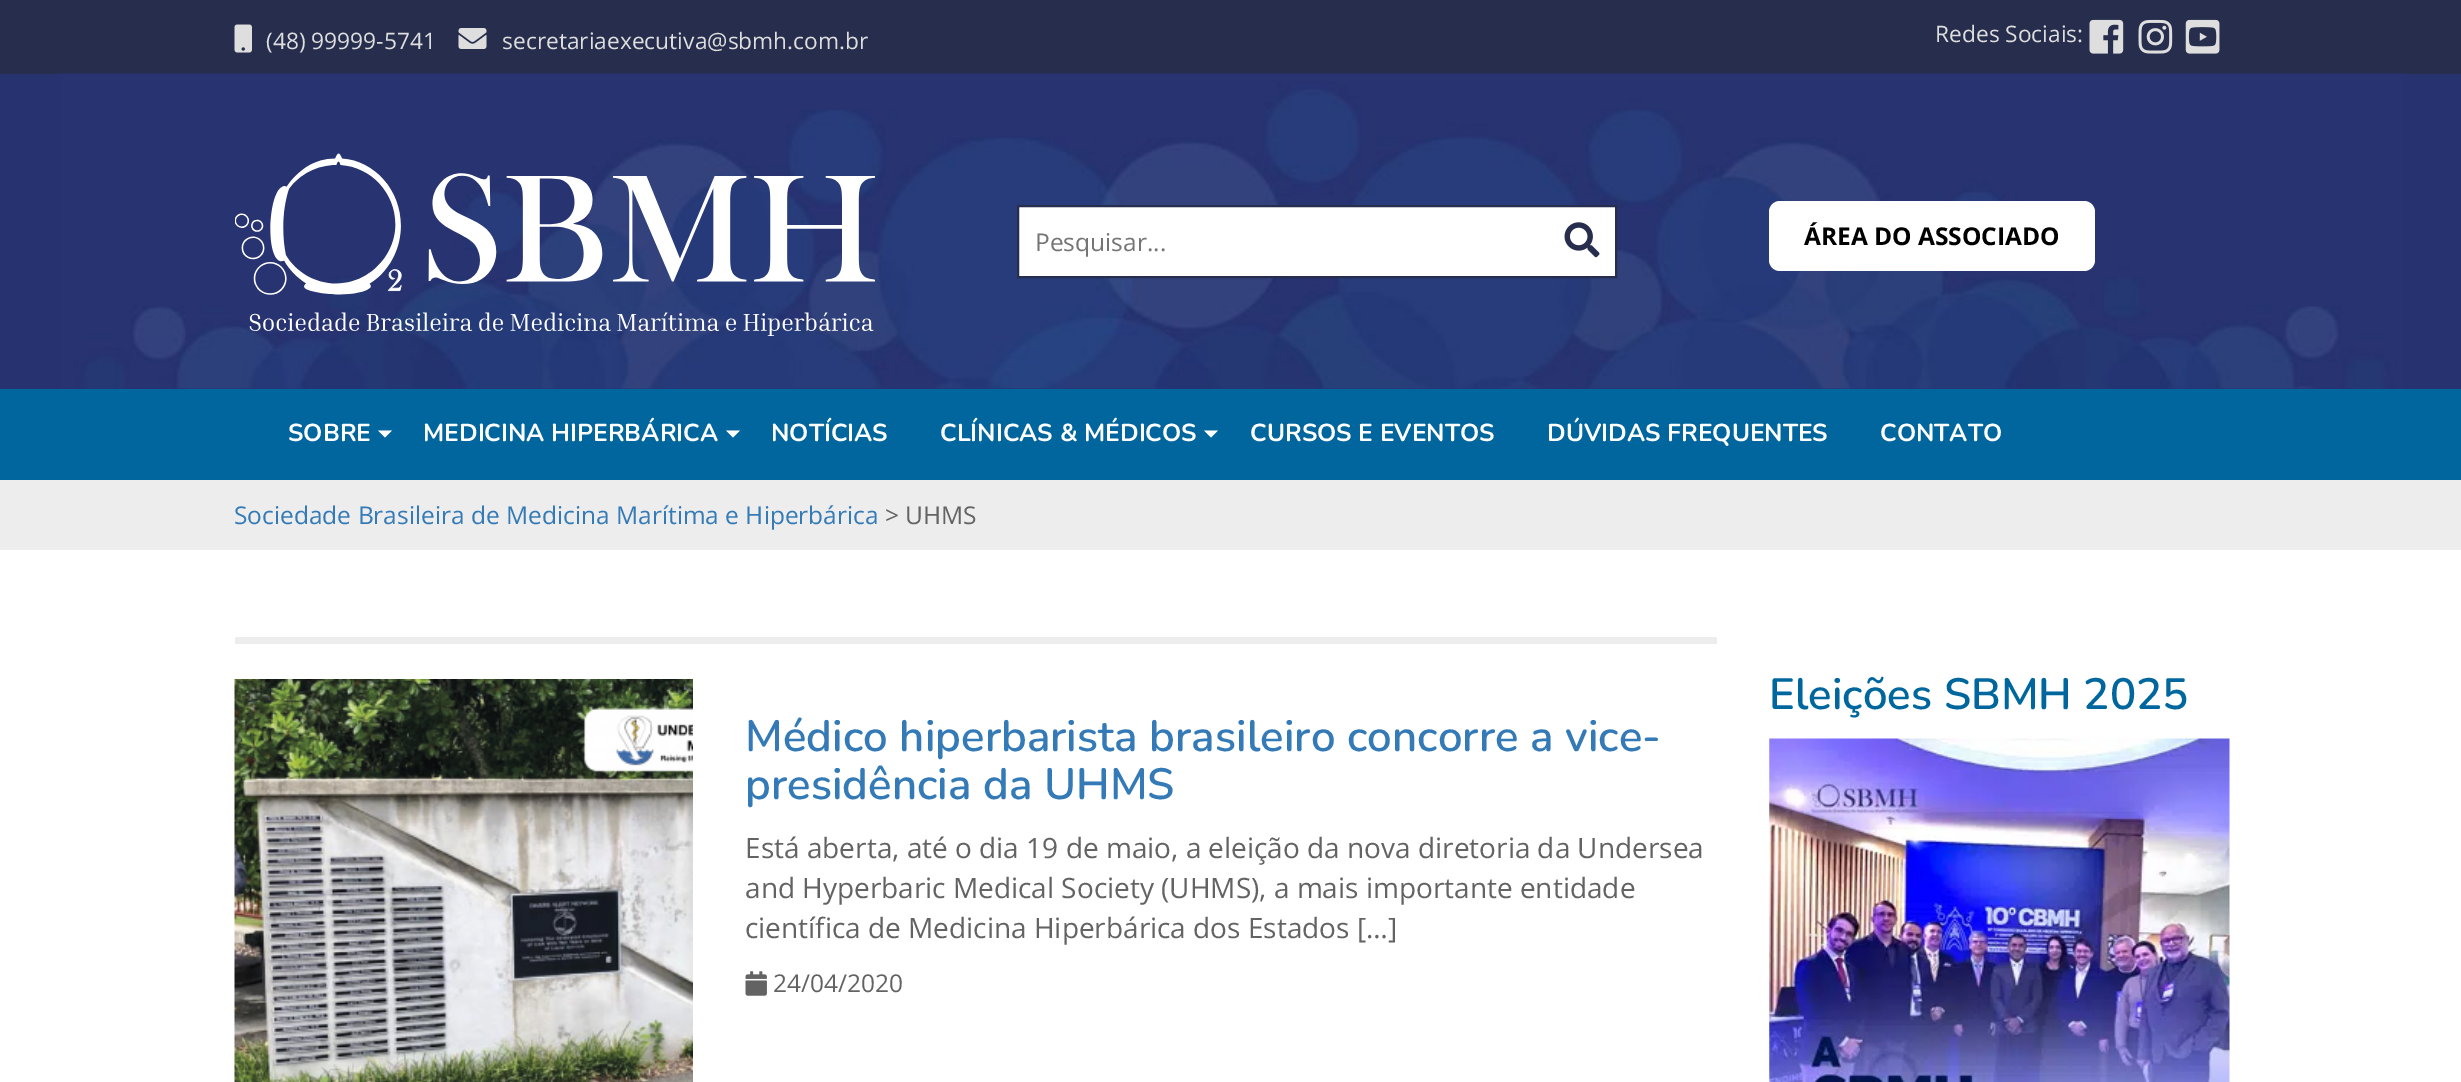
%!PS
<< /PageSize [2461 1082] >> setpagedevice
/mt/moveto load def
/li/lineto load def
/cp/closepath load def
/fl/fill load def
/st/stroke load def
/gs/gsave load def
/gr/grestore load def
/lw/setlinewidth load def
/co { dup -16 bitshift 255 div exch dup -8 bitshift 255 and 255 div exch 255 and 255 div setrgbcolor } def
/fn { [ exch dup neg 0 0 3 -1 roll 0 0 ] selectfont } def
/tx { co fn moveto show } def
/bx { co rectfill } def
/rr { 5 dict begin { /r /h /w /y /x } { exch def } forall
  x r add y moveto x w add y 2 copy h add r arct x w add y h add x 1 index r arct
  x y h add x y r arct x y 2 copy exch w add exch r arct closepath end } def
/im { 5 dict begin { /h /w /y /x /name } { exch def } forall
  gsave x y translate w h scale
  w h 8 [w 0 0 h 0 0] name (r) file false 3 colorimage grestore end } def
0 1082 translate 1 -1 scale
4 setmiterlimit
0 0 2461 1082 16#FFFFFF bx
0 0 2461 74 16#272E4D bx
(media/1.raw) 234 24 18 29 im
(media/2.raw) 458 28 29 21 im
(media/3.raw) 2089 19 35 35 im
(media/4.raw) 2138 19 35 35 im
(media/5.raw) 2185 19 35 35 im
0 74 2461 315 16#273371 bx
(media/6.raw) 59 73 2346 316 im
(media/7.raw) 235 153 641 183 im
16#FFFFFF co
1018 206 mt 1616 206 li 1616 277 li 1018 277 li cp gs fl gr
16#272E4D co
2 lw
st
(media/8.raw) 1564 222 36 36 im
16#FFFFFF co
1769 201 326 70 11 rr fl
0 389 2461 91 16#00669D bx
16#FFFFFF co
378 430.5 mt 392 430.5 li 385 437.5 li cp fl
726 430.5 mt 740 430.5 li 733 437.5 li cp fl
1204 430.5 mt 1218 430.5 li 1211 437.5 li cp fl
0 480 2461 70 16#EDEDED bx
(media/9.raw) 1769 738 461 344 im
235 637 1482 7 16#EDEDED bx
(media/10.raw) 234 679 459 403 im
(media/11.raw) 745 971 22 25 im
(\(48\) 99999-5741) 266 49 /OpenSans-Regular 22.75 16#DEDEDE tx
(secretariaexecutiva@sbmh.com.br) 502 49 /OpenSans-Regular 22.75 16#DEDEDE tx
(Redes Sociais:) 1935 42 /OpenSans-Regular 22.75 16#DEDEDE tx
(Pesquisar...) 1035 251 /OpenSans-Regular 24.5 16#757575 tx
(ÁREA DO ASSOCIADO) 1804 245 /OpenSans-Bold 24.5 16#000000 tx
(SOBRE) 288 441 /Nunito-Bold 24.5 16#FFFFFF tx
(MEDICINA HIPERBÁRICA) 423 441 /Nunito-Bold 24.5 16#FFFFFF tx
(NOTÍCIAS) 771 441 /Nunito-Bold 24.5 16#FFFFFF tx
(CLÍNICAS & MÉDICOS) 940 441 /Nunito-Bold 24.5 16#FFFFFF tx
(CURSOS E EVENTOS) 1250 441 /Nunito-Bold 24.5 16#FFFFFF tx
(DÚVIDAS FREQUENTES) 1547 441 /Nunito-Bold 24.5 16#FFFFFF tx
(CONTATO) 1880 441 /Nunito-Bold 24.5 16#FFFFFF tx
(Sociedade Brasileira de Medicina Marítima e Hiperbárica) 234 524 /OpenSans-Regular 24.5 16#337AB7 tx
(> UHMS) 885 524 /OpenSans-Regular 24.5 16#636363 tx
(Eleições SBMH 2025) 1769 709 /Nunito-SemiBold 43.75 16#00669E tx
(Médico hiperbarista brasileiro concorre a vice-) 745 751 /Nunito-SemiBold 43.75 16#337AB7 tx
(presidência da UHMS) 745 799 /Nunito-SemiBold 43.75 16#337AB7 tx
(Está aberta, até o dia 19 de maio, a eleição da nova diretoria da Undersea) 745 858 /OpenSans-Regular 28 16#636363 tx
(and Hyperbaric Medical Society \(UHMS\), a mais importante entidade) 745 898 /OpenSans-Regular 28 16#636363 tx
(científica de Medicina Hiperbárica dos Estados […]) 745 938 /OpenSans-Regular 28 16#636363 tx
(24/04/2020) 773 992 /OpenSans-Regular 24.5 16#636363 tx
showpage
